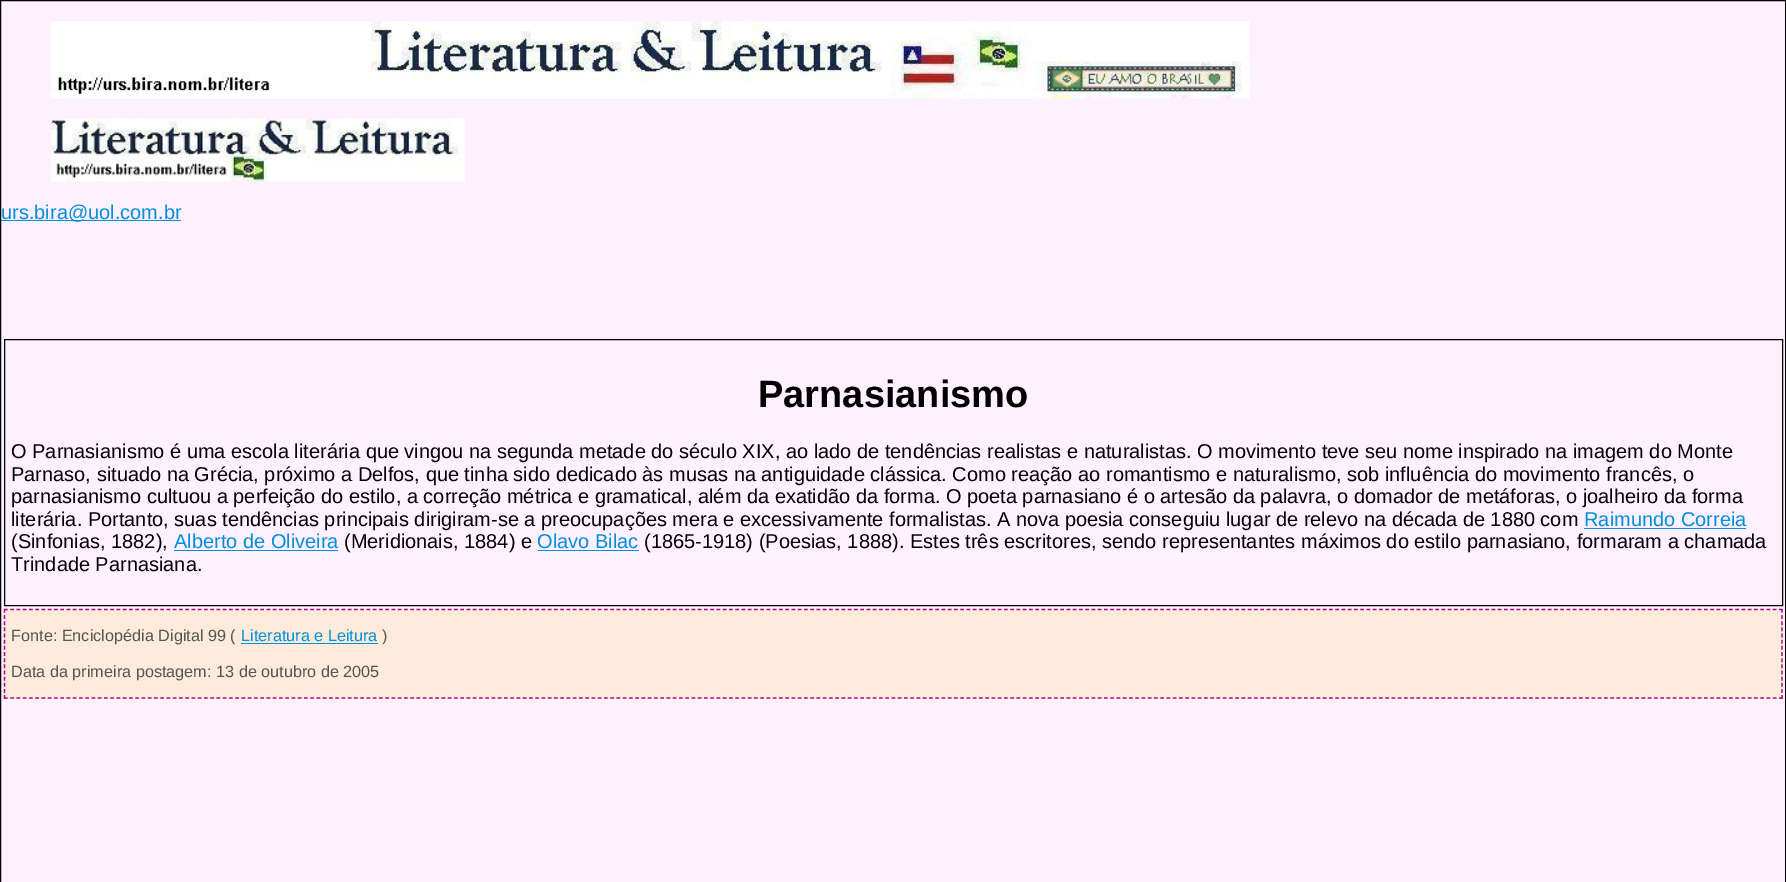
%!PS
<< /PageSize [1786 882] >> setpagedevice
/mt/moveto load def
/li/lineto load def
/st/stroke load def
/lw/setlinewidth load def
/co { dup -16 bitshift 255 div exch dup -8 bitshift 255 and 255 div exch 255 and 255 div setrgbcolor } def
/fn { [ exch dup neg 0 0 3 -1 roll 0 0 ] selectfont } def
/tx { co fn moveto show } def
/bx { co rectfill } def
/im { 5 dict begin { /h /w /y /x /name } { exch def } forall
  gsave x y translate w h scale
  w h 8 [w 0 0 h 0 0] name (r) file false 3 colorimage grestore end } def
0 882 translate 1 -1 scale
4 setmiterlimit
0 0 1786 882 16#FFF0FF bx
16#000000 co
.5 .5 1785 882 rectstroke
(media/1.raw) 51 21 1199 78 im
(media/2.raw) 51 118 414 64 im
1 220 180 1 16#008FD9 bx
16#000000 co
4.5 339.5 1778 266 rectstroke
1584 528 162 1 16#008FD9 bx
174 550 164 1 16#008FD9 bx
538 550 101 1 16#008FD9 bx
4 609 1779 90 16#FCEBDA bx
16#A9098C co
1.2 lw
[3.75 2.5] 0 setdash
4 609.5 mt 1782.5 609.5 li st
[3.75 2.41] 0 setdash
1782 609 mt 1782 699 li st
[3.75 2.5] 0 setdash
4 698 mt 1782.5 698 li st
[3.75 2.41] 0 setdash
4.5 609 mt 4.5 699 li st
241 643 137 1 16#008FD9 bx
(urs.bira@uol.com.br) 1 219 /LiberationSans-Regular 20 16#008FD9 tx
(Parnasianismo) 758 407 /LiberationSans-Bold 38 16#000000 tx
(O Parnasianismo é uma escola literária que vingou na segunda metade do século XIX, ao lado de tendências realistas e naturalistas. O movimento teve seu nome inspirado na imagem do Monte) 11 458 /LiberationSans-Regular 20 16#000000 tx
(Parnaso, situado na Grécia, próximo a Delfos, que tinha sido dedicado às musas na antiguidade clássica. Como reação ao romantismo e naturalismo, sob influência do movimento francês, o) 11 481 /LiberationSans-Regular 20 16#000000 tx
(parnasianismo cultuou a perfeição do estilo, a correção métrica e gramatical, além da exatidão da forma. O poeta parnasiano é o artesão da palavra, o domador de metáforas, o joalheiro da forma) 11 503 /LiberationSans-Regular 20 16#000000 tx
(literária. Portanto, suas tendências principais dirigiram-se a preocupações mera e excessivamente formalistas. A nova poesia conseguiu lugar de relevo na década de 1880 com) 11 526 /LiberationSans-Regular 20 16#000000 tx
(Raimundo Correia) 1584 526 /LiberationSans-Regular 20 16#008FD9 tx
(\(Sinfonias, 1882\),) 11 548 /LiberationSans-Regular 20 16#000000 tx
(Alberto de Oliveira) 174 548 /LiberationSans-Regular 20 16#008FD9 tx
(\(Meridionais, 1884\) e) 344 548 /LiberationSans-Regular 20 16#000000 tx
(Olavo Bilac) 537 548 /LiberationSans-Regular 20 16#008FD9 tx
(\(1865-1918\) \(Poesias, 1888\). Estes três escritores, sendo representantes máximos do estilo parnasiano, formaram a chamada) 644 548 /LiberationSans-Regular 20 16#000000 tx
(Trindade Parnasiana.) 11 571 /LiberationSans-Regular 20 16#000000 tx
(Fonte: Enciclopédia Digital 99 \() 11 641 /LiberationSans-Regular 16.25 16#555555 tx
(Literatura e Leitura) 241 641 /LiberationSans-Regular 16.25 16#008FD9 tx
(\)) 382 641 /LiberationSans-Regular 16.25 16#555555 tx
(Data da primeira postagem: 13 de outubro de 2005) 11 677 /LiberationSans-Regular 16.25 16#555555 tx
showpage
